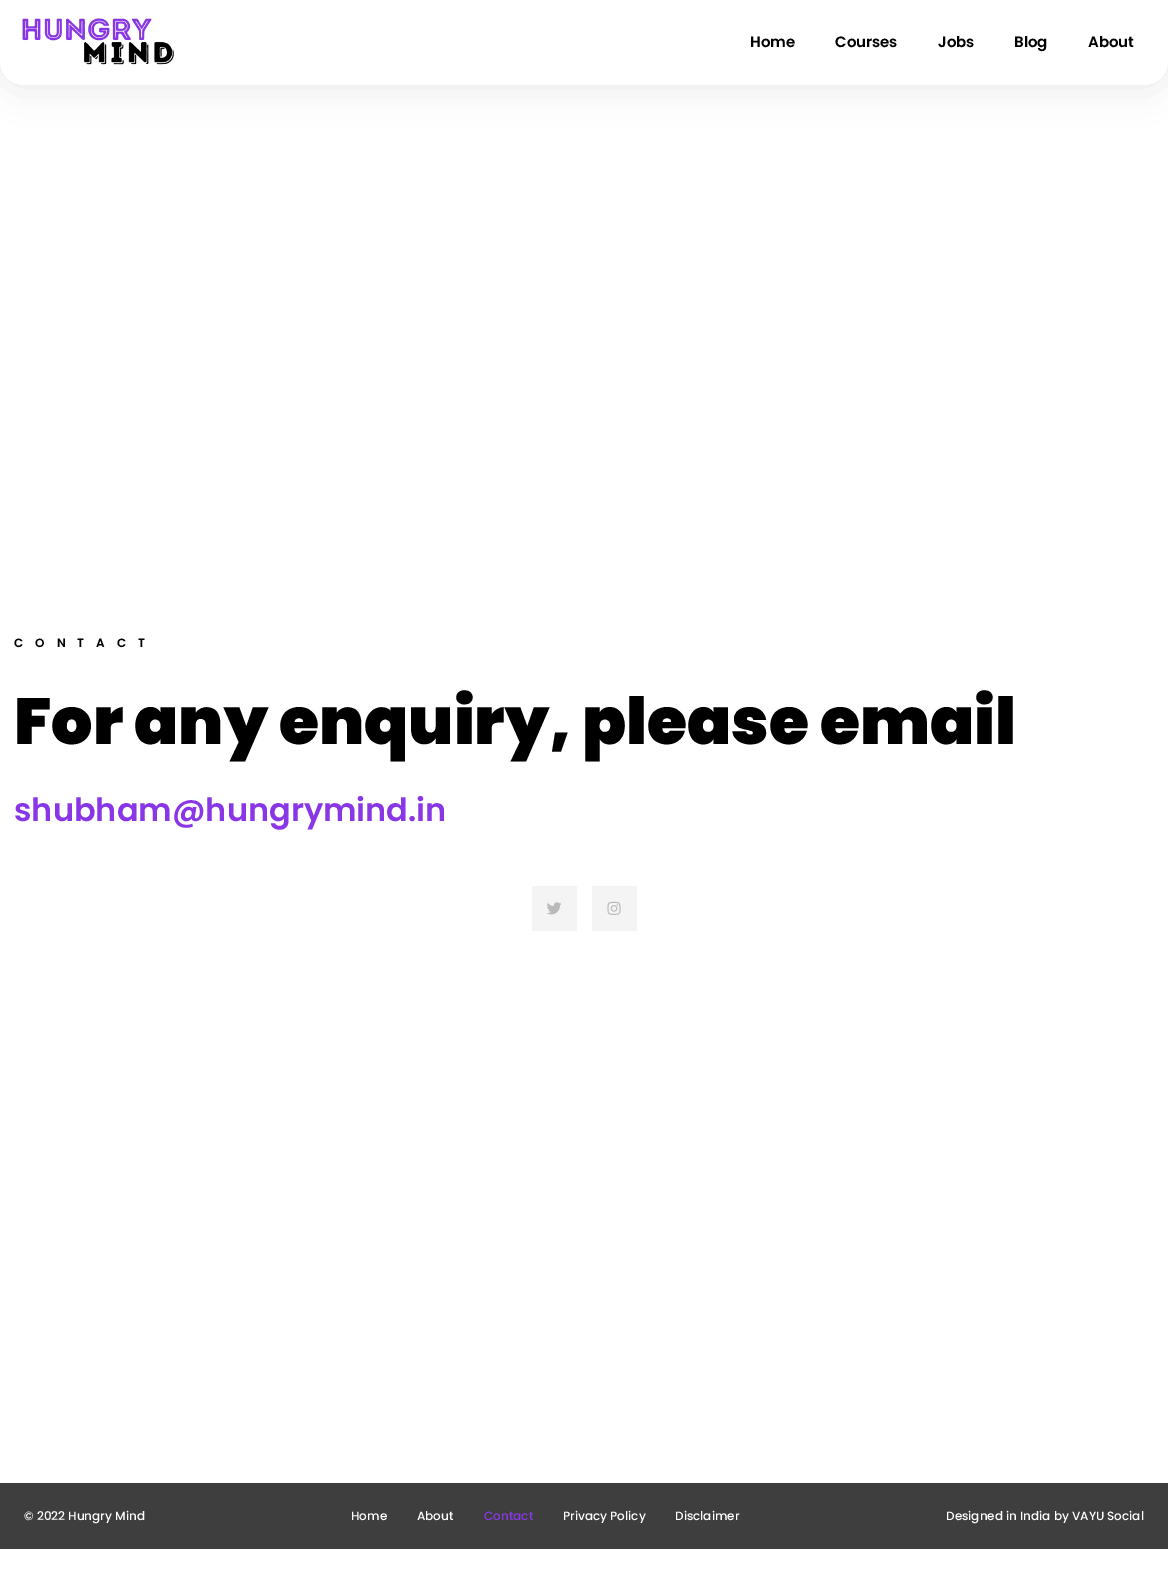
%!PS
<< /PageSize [1168 1571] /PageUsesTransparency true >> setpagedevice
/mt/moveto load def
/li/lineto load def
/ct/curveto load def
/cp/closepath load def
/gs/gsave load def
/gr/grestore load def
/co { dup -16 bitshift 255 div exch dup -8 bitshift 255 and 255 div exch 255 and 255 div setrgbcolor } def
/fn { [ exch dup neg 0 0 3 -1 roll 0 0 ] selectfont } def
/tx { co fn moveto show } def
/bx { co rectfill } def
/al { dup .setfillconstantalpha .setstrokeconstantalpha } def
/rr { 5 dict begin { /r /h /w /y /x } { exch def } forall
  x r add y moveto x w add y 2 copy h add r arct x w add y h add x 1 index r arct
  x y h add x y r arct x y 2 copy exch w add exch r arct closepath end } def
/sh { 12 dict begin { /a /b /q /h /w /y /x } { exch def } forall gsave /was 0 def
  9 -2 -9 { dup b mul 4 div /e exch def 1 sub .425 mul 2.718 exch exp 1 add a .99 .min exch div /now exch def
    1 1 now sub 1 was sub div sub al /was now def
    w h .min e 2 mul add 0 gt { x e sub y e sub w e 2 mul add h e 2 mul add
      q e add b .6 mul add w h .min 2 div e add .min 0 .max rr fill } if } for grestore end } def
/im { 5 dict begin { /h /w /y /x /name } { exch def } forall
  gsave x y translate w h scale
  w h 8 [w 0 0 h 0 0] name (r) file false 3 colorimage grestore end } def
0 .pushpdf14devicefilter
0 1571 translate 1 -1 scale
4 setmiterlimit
0 0 1168 1571 16#FFFFFF bx
gs
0 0 mt 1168 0 li 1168 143 li 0 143 li cp 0 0 mt 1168 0 li 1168 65 li 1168 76 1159 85 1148 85 ct 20 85 li 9 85 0 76 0 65 ct cp eoclip newpath
16#000000 co
0 0 1168 85 20 19 .1 sh
gr
(media/1.raw) 22 18 152 47 im
532 886 45 45 16#F4F4F4 bx
(media/2.raw) 547 902 15 13 im
592 886 45 45 16#F4F4F4 bx
(media/3.raw) 607 901 14 14 im
0 1483 1168 66 16#3E3E3E bx
(Home) 750 47 /Poppins-SemiBold 15 16#000000 tx
(Courses) 835 47 /Poppins-SemiBold 15 16#000000 tx
(Jobs) 938 47 /Poppins-SemiBold 15 16#000000 tx
(Blog) 1014 47 /Poppins-SemiBold 15 16#000000 tx
(About) 1088 47 /Poppins-SemiBold 15 16#000000 tx
/Poppins-SemiBold 12 fn
14 647 mt 12 0 (CONTACT) ashow
(For any enquiry, please email) 14 744 /Poppins-Black 65 16#000000 tx
(shubham@hungrymind.in) 14 821 /Poppins-SemiBold 32 16#8936E6 tx
(© 2022 Hungry Mind) 24 1520 /Poppins-Medium 12 16#FFFFFF tx
(Home) 351 1520 /Poppins-Medium 12 16#FFFFFF tx
(About) 417 1520 /Poppins-Medium 12 16#FFFFFF tx
(Contact) 484 1520 /Poppins-Medium 12 16#8936E6 tx
(Privacy Policy) 563 1520 /Poppins-Medium 12 16#FFFFFF tx
(Disclaimer) 675 1520 /Poppins-Medium 12 16#FFFFFF tx
(Designed in India by VAYU Social) 946 1520 /Poppins-Medium 12 16#FFFFFF tx
.poppdf14devicefilter showpage
